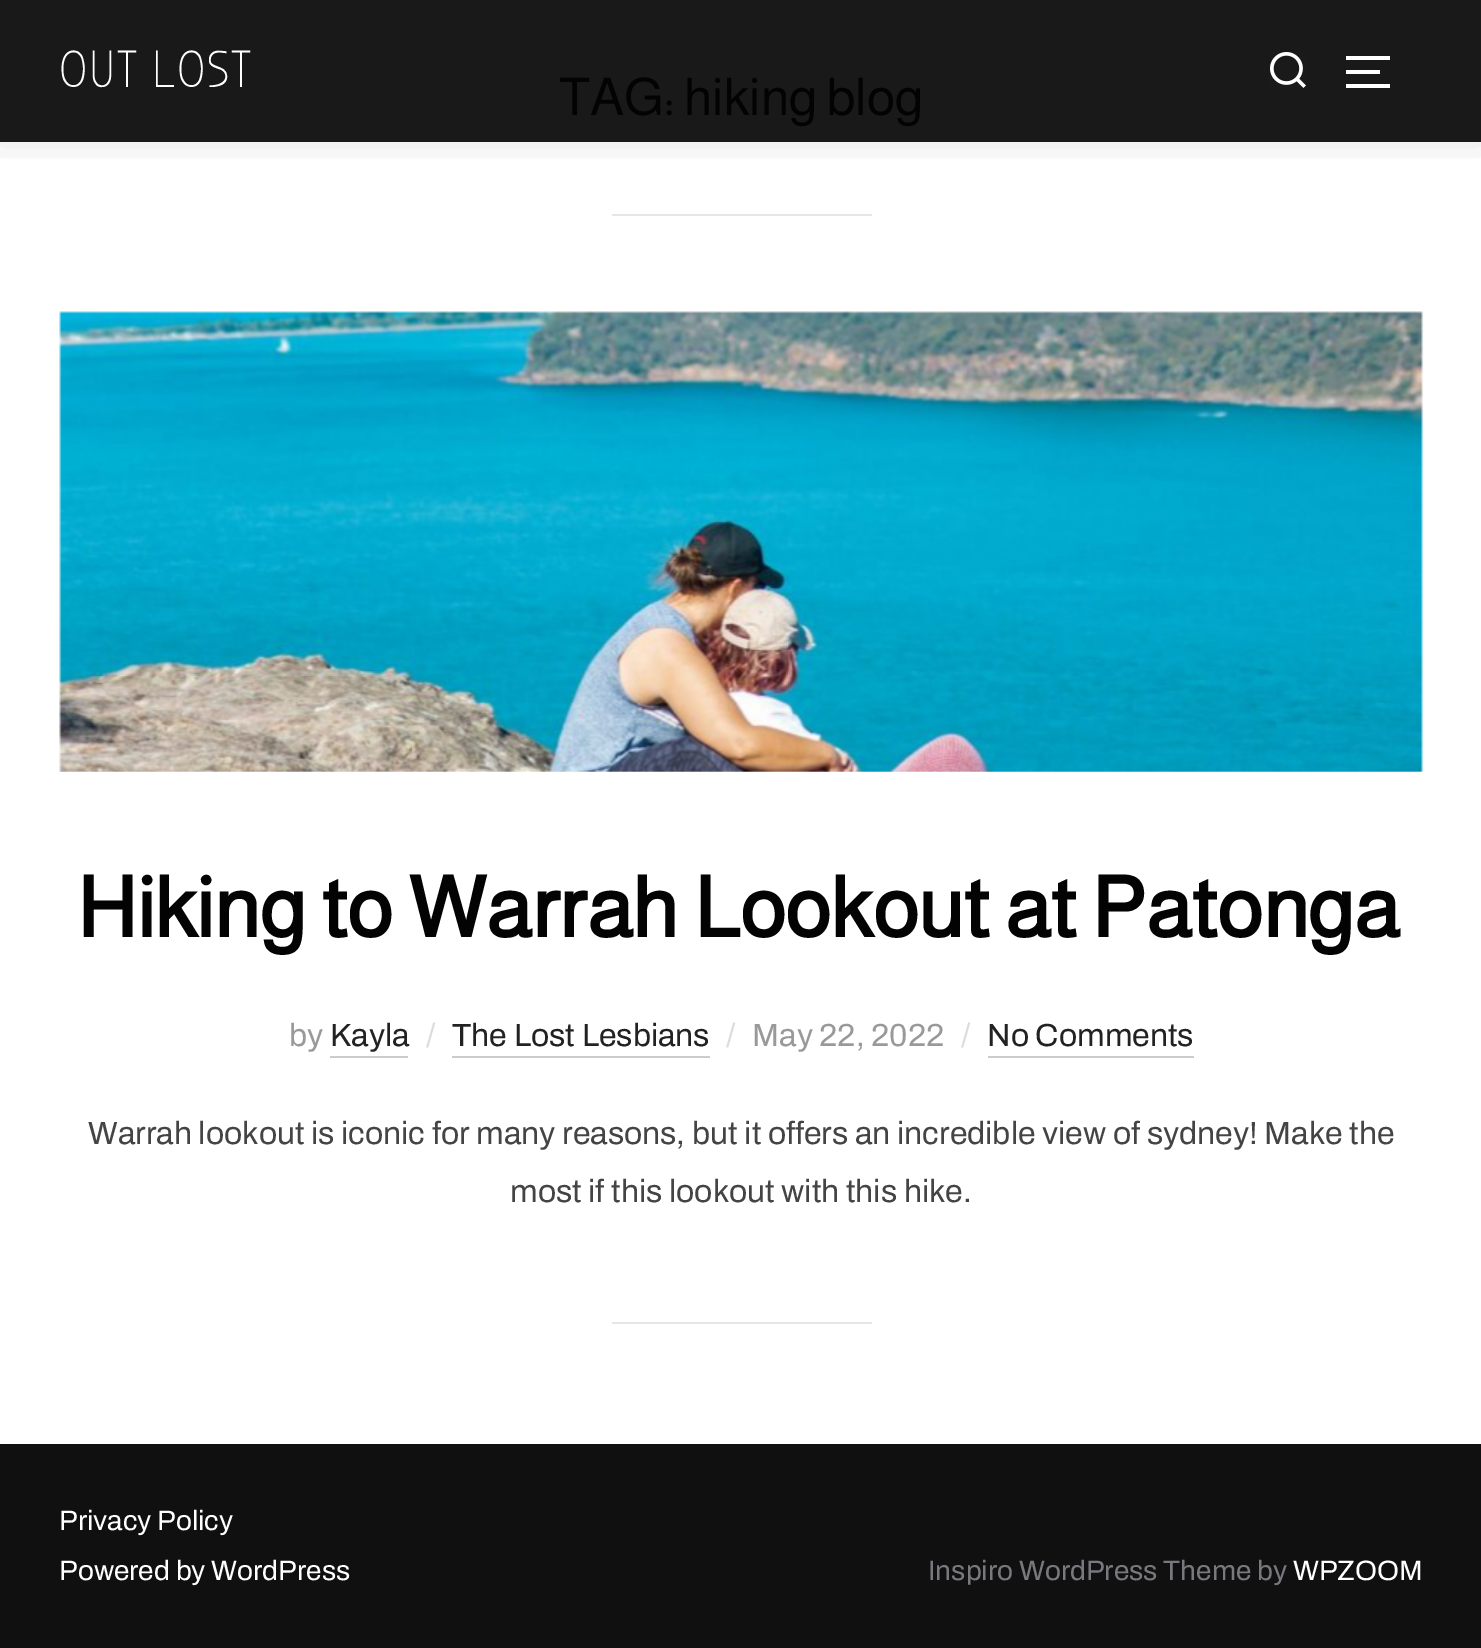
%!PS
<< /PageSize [1481 1648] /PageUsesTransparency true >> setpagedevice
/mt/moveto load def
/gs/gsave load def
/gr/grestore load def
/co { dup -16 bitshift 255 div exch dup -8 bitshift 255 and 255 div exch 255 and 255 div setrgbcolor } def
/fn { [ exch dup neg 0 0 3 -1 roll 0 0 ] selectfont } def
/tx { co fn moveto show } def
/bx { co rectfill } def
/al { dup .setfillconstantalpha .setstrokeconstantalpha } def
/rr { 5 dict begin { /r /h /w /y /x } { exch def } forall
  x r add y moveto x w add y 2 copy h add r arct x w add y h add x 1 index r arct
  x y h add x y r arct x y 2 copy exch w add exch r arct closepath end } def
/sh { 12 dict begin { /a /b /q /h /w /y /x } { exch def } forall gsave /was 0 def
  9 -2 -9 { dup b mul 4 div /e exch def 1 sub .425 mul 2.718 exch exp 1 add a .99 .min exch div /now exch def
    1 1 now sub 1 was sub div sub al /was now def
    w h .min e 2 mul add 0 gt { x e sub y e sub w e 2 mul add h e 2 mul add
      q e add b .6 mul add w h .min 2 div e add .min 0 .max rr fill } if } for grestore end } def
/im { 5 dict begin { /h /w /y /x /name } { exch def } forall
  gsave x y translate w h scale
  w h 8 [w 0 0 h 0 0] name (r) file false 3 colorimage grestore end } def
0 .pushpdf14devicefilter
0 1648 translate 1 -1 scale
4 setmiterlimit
0 0 1481 1648 16#FFFFFF bx
0 0 1481 142 16#191919 bx
gs
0 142 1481 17 rectclip
16#000000 co
-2 -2 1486 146 0 18 .1 sh
gr
(media/1.raw) 1270 52 36 36 im
1346 56 44 4 16#FFFFFF bx
1346 70 34 4 16#FFFFFF bx
1346 84 44 4 16#FFFFFF bx
612 214 260 2 16#E6E6E6 bx
(media/2.raw) 59 311 1365 461 im
330 1056 78 2 16#CCCCCC bx
452 1056 258 2 16#CCCCCC bx
988 1056 206 2 16#CCCCCC bx
612 1322 260 2 16#E6E6E6 bx
0 1444 1481 204 16#101010 bx
/BubblerOne-Regular 52 fn
16#FFFFFF co
59 87 mt 2 0 (OUT LOST) ashow
(TAG: hiking blog) 559 115 /Almarai-Regular 52 16#030303 tx
(Hiking to Warrah Lookout at Patonga) 77 937 /Almarai-Bold 84 16#030303 tx
(by) 289 1046 /Archivo-SemiBold 32 16#999999 tx
(Kayla) 330 1046 /Archivo-SemiBold 32 16#222222 tx
(/) 426 1046 /Archivo-SemiBold 32 16#DBDDDD tx
(The Lost Lesbians) 452 1046 /Archivo-SemiBold 32 16#222222 tx
(/) 726 1046 /Archivo-SemiBold 32 16#DBDDDD tx
(May 22, 2022) 752 1046 /Archivo-SemiBold 32 16#999999 tx
(/) 961 1046 /Archivo-SemiBold 32 16#DBDDDD tx
(No Comments) 987 1046 /Archivo-SemiBold 32 16#222222 tx
(Warrah lookout is iconic for many reasons, but it offers an incredible view of sydney! Make the) 88 1144 /Archivo-SemiBold 32 16#444444 tx
(most if this lookout with this hike.) 510 1202 /Archivo-SemiBold 32 16#444444 tx
(Privacy Policy) 59 1530 /Archivo-SemiBold 28 16#FFFFFF tx
(Powered by WordPress) 59 1580 /Archivo-SemiBold 28 16#FFFFFF tx
(Inspiro WordPress Theme by) 928 1580 /Archivo-SemiBold 28 16#78787F tx
(WPZOOM) 1293 1580 /Archivo-SemiBold 28 16#FFFFFF tx
.poppdf14devicefilter showpage
